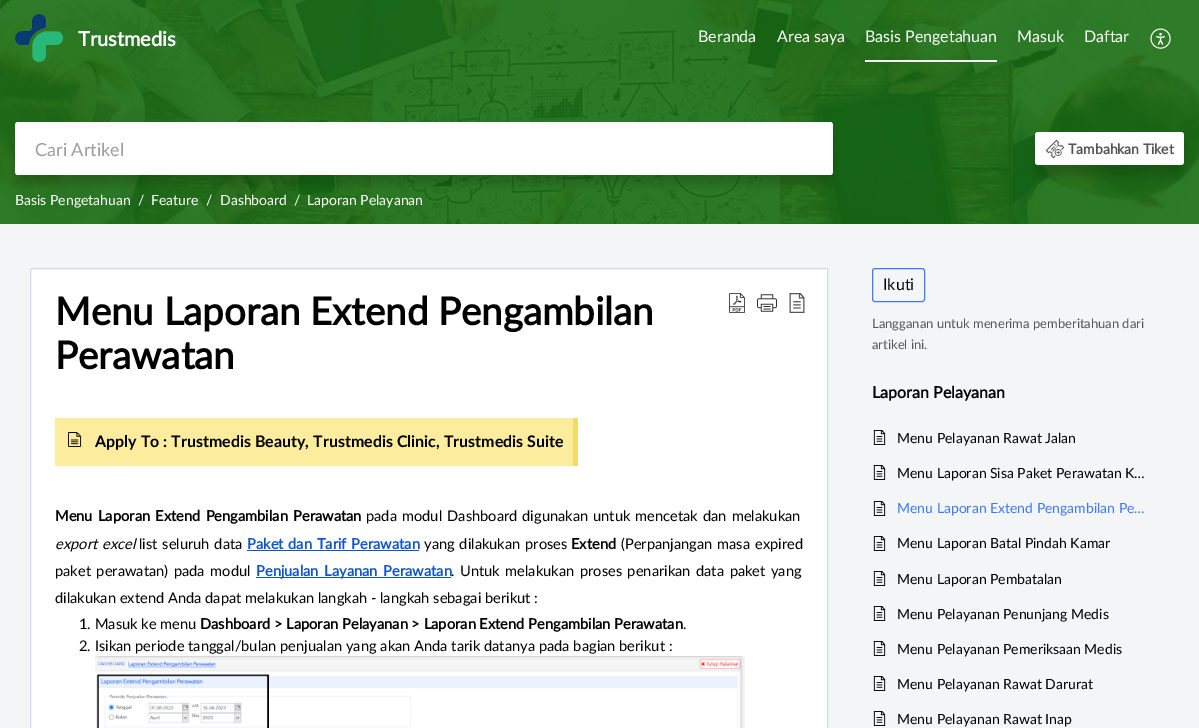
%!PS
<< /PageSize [1199 728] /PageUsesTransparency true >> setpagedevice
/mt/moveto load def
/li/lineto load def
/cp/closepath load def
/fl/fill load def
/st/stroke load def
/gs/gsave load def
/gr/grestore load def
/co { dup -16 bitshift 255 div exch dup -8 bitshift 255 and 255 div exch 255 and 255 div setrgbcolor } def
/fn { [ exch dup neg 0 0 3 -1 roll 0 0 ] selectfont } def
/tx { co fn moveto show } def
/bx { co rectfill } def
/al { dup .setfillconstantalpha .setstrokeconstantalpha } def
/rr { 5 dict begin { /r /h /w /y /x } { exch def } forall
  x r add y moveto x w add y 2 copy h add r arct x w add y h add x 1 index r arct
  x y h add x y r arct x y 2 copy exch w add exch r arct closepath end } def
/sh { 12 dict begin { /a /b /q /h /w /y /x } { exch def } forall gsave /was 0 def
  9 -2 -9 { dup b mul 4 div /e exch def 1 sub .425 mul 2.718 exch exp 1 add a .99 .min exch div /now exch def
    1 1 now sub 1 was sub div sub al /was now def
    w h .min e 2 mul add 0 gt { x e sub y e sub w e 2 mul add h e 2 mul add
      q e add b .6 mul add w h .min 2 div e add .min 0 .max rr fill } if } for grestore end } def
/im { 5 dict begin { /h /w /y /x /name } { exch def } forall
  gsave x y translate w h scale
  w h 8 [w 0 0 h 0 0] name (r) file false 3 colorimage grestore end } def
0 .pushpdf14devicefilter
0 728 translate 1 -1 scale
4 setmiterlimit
0 0 1199 728 16#F3F5F7 bx
(media/1.raw) 0 0 1199 224 im
(media/2.raw) 15 14 48 48 im
865 60 132 2 16#FFFFFF bx
(media/3.raw) 1150 28 21 21 im
16#000000 co
15 132 818 53 0 5 .16 sh
16#FFFFFF co
15 122 818 53 3 rr fl
16#000000 co
1035 142 149 33 3 5 .16 sh
16#FFFFFF co
1035 132 149 33 3 rr fl
(media/4.raw) 1045 139 20 20 im
30.5 268.5 mt 827.5 268.5 li 827.5 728.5 li 30.5 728.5 li cp gs fl gr
16#D4DADF co
st
(media/5.raw) 729 293 16 20 im
(media/6.raw) 757 294 20 18 im
(media/7.raw) 789 293 16 20 im
55 418 518 48 16#FCED9E bx
573 418 5 48 16#F2DB68 bx
(media/8.raw) 68 432 14 15 im
247 550 172 1 16#1155CC bx
256 577 195 1 16#1155CC bx
(media/9.raw) 95 656 650 72 im
16#3E7AF7 co
872.5 268.5 52 33 2.5 rr st
(media/10.raw) 873 430 13 15 im
(media/10.raw) 873 465 13 15 im
(media/10.raw) 873 501 13 15 im
(media/10.raw) 873 536 13 15 im
(media/10.raw) 873 571 13 15 im
(media/10.raw) 873 606 13 15 im
(media/10.raw) 873 641 13 15 im
(media/10.raw) 873 676 13 15 im
(media/10.raw) 873 711 13 15 im
(Trustmedis) 78 46 /Lato-Bold 20 16#FFFFFF tx
(Beranda) 698 42 /Lato-Regular 16 16#FFFFFF tx
(Area saya) 777 42 /Lato-Regular 16 16#FFFFFF tx
(Basis Pengetahuan) 865 42 /Lato-Regular 16 16#FFFFFF tx
(Masuk) 1017 42 /Lato-Regular 16 16#FFFFFF tx
(Daftar) 1084 42 /Lato-Regular 16 16#FFFFFF tx
(Cari Artikel) 35 156 /Lato-Regular 18 16#9E9E9E tx
(Tambahkan Tiket) 1068 154 /Lato-Bold 14 16#555555 tx
(Basis Pengetahuan) 15 205 /Lato-Regular 14 16#FFFFFF tx
(/) 138 205 /Lato-Regular 14 16#FFFFFF tx
(Feature) 151 205 /Lato-Regular 14 16#FFFFFF tx
(/) 206 205 /Lato-Regular 14 16#FFFFFF tx
(Dashboard) 220 205 /Lato-Regular 14 16#FFFFFF tx
(/) 294 205 /Lato-Regular 14 16#FFFFFF tx
(Laporan Pelayanan) 307 205 /Lato-Regular 14 16#FFFFFF tx
(Menu Laporan Extend Pengambilan) 55 325 /Lato-Bold 38.4 16#000000 tx
(Perawatan) 55 369 /Lato-Bold 38.4 16#000000 tx
(Apply To : Trustmedis Beauty, Trustmedis Clinic, Trustmedis Suite) 95 447 /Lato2-Bold 16 16#000000 tx
/Lato-Bold 14.65 fn
55 521 mt 1.5 0 32 (Menu Laporan Extend Pengambilan Perawatan) widthshow
/Lato-Regular 14.65 fn
366 521 mt 1.25 0 32 (pada modul Dashboard digunakan untuk mencetak dan melakukan) widthshow
/Lato-Italic 14.65 fn
55 549 mt 1 0 32 (export excel) widthshow
/Lato-Regular 14.65 fn
139 549 mt 1 0 32 (list seluruh data) widthshow
/Lato-Bold 14.65 fn
16#1155CC co
247 549 mt 1 0 32 (Paket dan Tarif Perawatan) widthshow
/Lato-Regular 14.65 fn
16#000000 co
424 549 mt 1 0 32 (yang dilakukan proses) widthshow
(Extend) 571 549 /Lato-Bold 14.65 16#000000 tx
/Lato-Regular 14.65 fn
621 549 mt 1 0 32 (\(Perpanjangan masa expired) widthshow
55 576 mt 1.75 0 32 (paket perawatan\) pada modul) widthshow
/Lato-Bold 14.65 fn
16#1155CC co
256 576 mt 2 0 32 (Penjualan Layanan Perawatan) widthshow
/Lato-Regular 14.65 fn
16#000000 co
451 576 mt 1.75 0 32 (. Untuk melakukan proses penarikan data paket yang) widthshow
(dilakukan extend Anda dapat melakukan langkah - langkah sebagai berikut :) 55 603 /Lato-Regular 14.65 16#000000 tx
(1. Masuk ke menu) 79 629 /Lato-Regular 14.65 16#000000 tx
(Dashboard > Laporan Pelayanan > Laporan Extend Pengambilan Perawatan) 200 629 /Lato-Bold 14.65 16#000000 tx
(.) 683 629 /Lato-Regular 14.65 16#000000 tx
(2. Isikan periode tanggal/bulan penjualan yang akan Anda tarik datanya pada bagian berikut :) 79 651 /Lato-Regular 14.65 16#000000 tx
(Ikuti) 883 290 /Lato-Regular 16 16#000000 tx
(Langganan untuk menerima pemberitahuan dari) 872 328 /Lato-Regular 13 16#555555 tx
(artikel ini.) 872 349 /Lato-Regular 13 16#555555 tx
(Laporan Pelayanan) 872 398 /Lato-Bold 16 16#000000 tx
(Menu Pelayanan Rawat Jalan) 897 443 /Lato-Regular 14 16#000000 tx
(Menu Laporan Sisa Paket Perawatan K…) 897 478 /Lato-Regular 14 16#000000 tx
(Menu Laporan Extend Pengambilan Pe…) 897 513 /Lato-Regular 14 16#3E7AF7 tx
(Menu Laporan Batal Pindah Kamar) 897 548 /Lato-Regular 14 16#000000 tx
(Menu Laporan Pembatalan) 897 584 /Lato-Regular 14 16#000000 tx
(Menu Pelayanan Penunjang Medis) 897 619 /Lato-Regular 14 16#000000 tx
(Menu Pelayanan Pemeriksaan Medis) 897 654 /Lato-Regular 14 16#000000 tx
(Menu Pelayanan Rawat Darurat) 897 689 /Lato-Regular 14 16#000000 tx
(Menu Pelayanan Rawat Inap) 897 724 /Lato-Regular 14 16#000000 tx
.poppdf14devicefilter showpage
